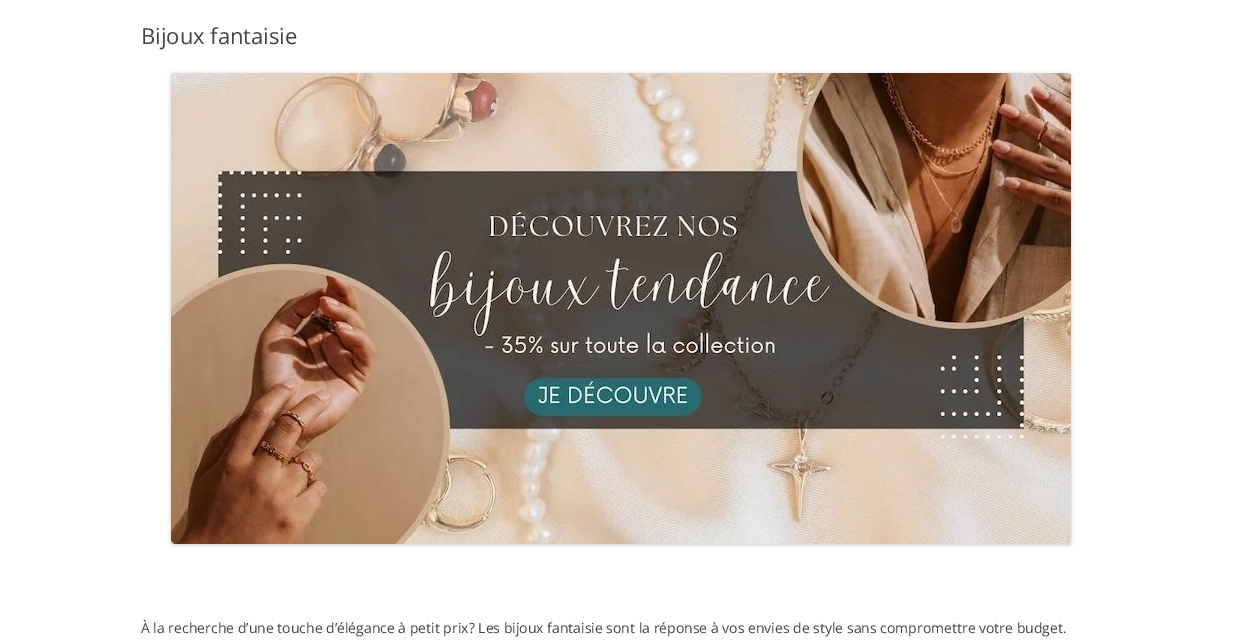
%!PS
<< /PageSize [1241 644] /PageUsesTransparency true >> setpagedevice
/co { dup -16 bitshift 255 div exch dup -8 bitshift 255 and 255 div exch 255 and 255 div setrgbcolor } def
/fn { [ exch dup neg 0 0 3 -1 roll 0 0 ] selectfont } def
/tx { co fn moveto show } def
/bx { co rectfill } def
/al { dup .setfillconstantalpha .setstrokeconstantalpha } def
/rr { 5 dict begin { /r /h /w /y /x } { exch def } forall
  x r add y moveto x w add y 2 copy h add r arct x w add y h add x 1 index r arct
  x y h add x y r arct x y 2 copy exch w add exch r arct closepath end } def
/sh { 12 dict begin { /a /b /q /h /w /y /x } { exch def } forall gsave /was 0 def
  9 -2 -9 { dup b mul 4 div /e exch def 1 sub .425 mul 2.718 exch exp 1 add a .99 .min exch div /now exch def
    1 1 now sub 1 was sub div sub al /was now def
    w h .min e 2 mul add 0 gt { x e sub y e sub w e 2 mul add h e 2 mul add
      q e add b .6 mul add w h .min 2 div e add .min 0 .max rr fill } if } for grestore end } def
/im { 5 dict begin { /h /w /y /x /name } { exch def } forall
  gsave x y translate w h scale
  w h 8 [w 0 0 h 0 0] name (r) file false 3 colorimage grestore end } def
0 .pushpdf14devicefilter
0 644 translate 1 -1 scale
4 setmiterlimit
0 0 1241 644 16#FFFFFF bx
16#000000 co
171 74 900 471 3 2 .2 sh
(media/1.raw) 171 73 900 471 im
(Bijoux fantaisie) 141 44 /OpenSans-Regular 22 16#444444 tx
(À la recherche d’une touche d’élégance à petit prix? Les bijoux fantaisie sont la réponse à vos envies de style sans compromettre votre budget.) 141 633 /OpenSans-Regular 14 16#444444 tx
.poppdf14devicefilter showpage
